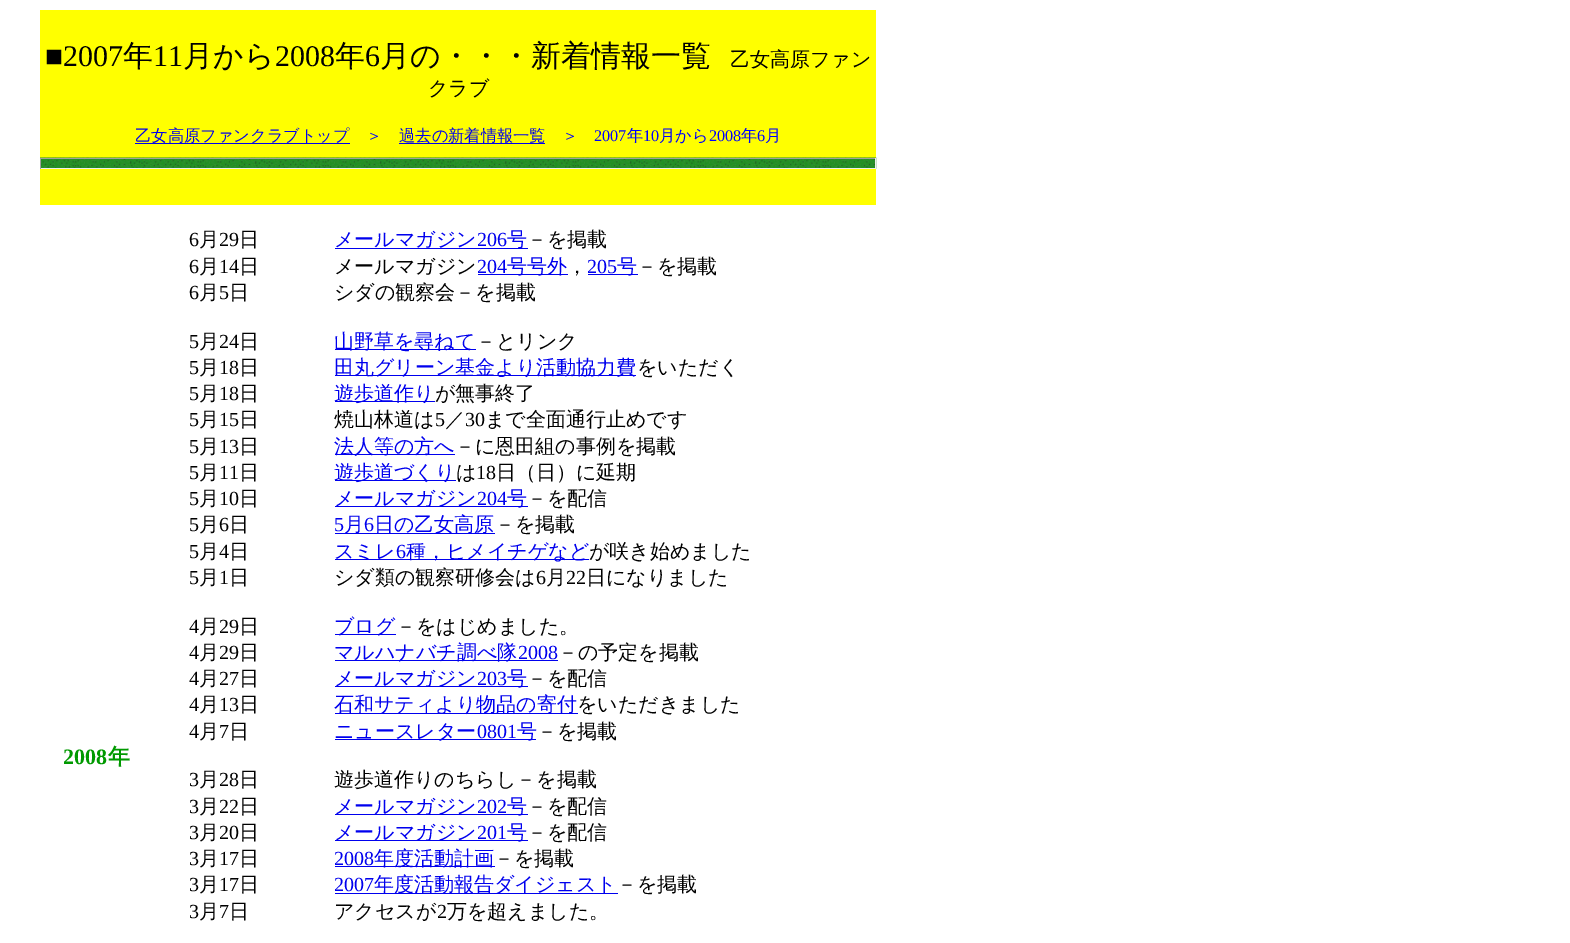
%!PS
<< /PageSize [1570 943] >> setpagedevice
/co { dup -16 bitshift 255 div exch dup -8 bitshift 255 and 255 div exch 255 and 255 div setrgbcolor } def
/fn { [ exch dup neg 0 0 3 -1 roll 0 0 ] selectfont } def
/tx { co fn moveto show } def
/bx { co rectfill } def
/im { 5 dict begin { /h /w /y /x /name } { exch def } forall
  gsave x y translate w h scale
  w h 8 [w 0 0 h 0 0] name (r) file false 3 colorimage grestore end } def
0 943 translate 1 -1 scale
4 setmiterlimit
0 0 1570 943 16#FFFFFF bx
40 10 836 195 16#FFFF00 bx
135 143 215 1 16#0000EE bx
399 143 146 1 16#0000EE bx
(media/1.raw) 40 157 837 12 im
40 158 836 1 16#9F9F9F bx
875 158 1 11 16#EEEEEE bx
40 168 836 1 16#EEEEEE bx
40 158 1 11 16#9F9F9F bx
335 248 193 1 16#0000EE bx
478 274 90 1 16#0000EE bx
588 274 50 1 16#0000EE bx
335 349 141 1 16#0000EE bx
335 375 301 1 16#0000EE bx
335 401 100 1 16#0000EE bx
335 454 120 1 16#0000EE bx
335 480 121 1 16#0000EE bx
335 506 193 1 16#0000EE bx
335 533 160 1 16#0000EE bx
335 559 254 1 16#0000EE bx
335 634 61 1 16#0000EE bx
335 660 223 1 16#0000EE bx
335 686 193 1 16#0000EE bx
335 713 243 1 16#0000EE bx
335 739 201 1 16#0000EE bx
335 814 193 1 16#0000EE bx
335 840 193 1 16#0000EE bx
335 866 160 1 16#0000EE bx
335 893 283 1 16#0000EE bx
(■2007) 45 66 /LiberationSerif-Regular 30 16#000000 tx
(年) 123 66 /WenQuanYiZenHei-Medium 30 16#000000 tx
(11) 153 66 /LiberationSerif-Regular 30 16#000000 tx
(月から) 183 66 /WenQuanYiZenHei-Medium 30 16#000000 tx
(2008) 275 66 /LiberationSerif-Regular 30 16#000000 tx
(年) 335 66 /WenQuanYiZenHei-Medium 30 16#000000 tx
(6) 365 66 /LiberationSerif-Regular 30 16#000000 tx
(月の・・・新着情報一覧) 380 66 /WenQuanYiZenHei-Medium 30 16#000000 tx
(乙女高原ファン) 730 66 /WenQuanYiZenHei-Medium 20 16#000000 tx
(クラブ) 428 95 /WenQuanYiZenHei-Medium 20 16#000000 tx
(乙女高原ファンクラブトップ) 135 141 /WenQuanYiZenHei-Medium 16.25 16#0000EE tx
(＞) 366 141 /WenQuanYiZenHei-Medium 16.25 16#0000FF tx
(過去の新着情報一覧) 399 141 /WenQuanYiZenHei-Medium 16.25 16#0000EE tx
(＞) 562 141 /WenQuanYiZenHei-Medium 16.25 16#0000FF tx
(2007) 594 141 /LiberationSerif-Regular 16.25 16#0000FF tx
(年) 627 141 /WenQuanYiZenHei-Medium 16.25 16#0000FF tx
(10) 643 141 /LiberationSerif-Regular 16.25 16#0000FF tx
(月から) 659 141 /WenQuanYiZenHei-Medium 16.25 16#0000FF tx
(2008) 709 141 /LiberationSerif-Regular 16.25 16#0000FF tx
(年) 741 141 /WenQuanYiZenHei-Medium 16.25 16#0000FF tx
(6) 757 141 /LiberationSerif-Regular 16.25 16#0000FF tx
(月) 765 141 /WenQuanYiZenHei-Medium 16.25 16#0000FF tx
(2008) 63 764 /LiberationSerif-Bold 22 16#009900 tx
(年) 108 764 /WenQuanYiZenHei-Bold 22 16#009900 tx
(6) 189 246 /LiberationSerif-Regular 20 16#000000 tx
(月) 199 246 /WenQuanYiZenHei-Medium 20 16#000000 tx
(29) 219 246 /LiberationSerif-Regular 20 16#000000 tx
(日) 239 246 /WenQuanYiZenHei-Medium 20 16#000000 tx
(6) 189 273 /LiberationSerif-Regular 20 16#000000 tx
(月) 199 273 /WenQuanYiZenHei-Medium 20 16#000000 tx
(14) 219 273 /LiberationSerif-Regular 20 16#000000 tx
(日) 239 273 /WenQuanYiZenHei-Medium 20 16#000000 tx
(6) 189 299 /LiberationSerif-Regular 20 16#000000 tx
(月) 199 299 /WenQuanYiZenHei-Medium 20 16#000000 tx
(5) 219 299 /LiberationSerif-Regular 20 16#000000 tx
(日) 229 299 /WenQuanYiZenHei-Medium 20 16#000000 tx
(5) 189 348 /LiberationSerif-Regular 20 16#000000 tx
(月) 199 348 /WenQuanYiZenHei-Medium 20 16#000000 tx
(24) 219 348 /LiberationSerif-Regular 20 16#000000 tx
(日) 239 348 /WenQuanYiZenHei-Medium 20 16#000000 tx
(5) 189 374 /LiberationSerif-Regular 20 16#000000 tx
(月) 199 374 /WenQuanYiZenHei-Medium 20 16#000000 tx
(18) 219 374 /LiberationSerif-Regular 20 16#000000 tx
(日) 239 374 /WenQuanYiZenHei-Medium 20 16#000000 tx
(5) 189 400 /LiberationSerif-Regular 20 16#000000 tx
(月) 199 400 /WenQuanYiZenHei-Medium 20 16#000000 tx
(18) 219 400 /LiberationSerif-Regular 20 16#000000 tx
(日) 239 400 /WenQuanYiZenHei-Medium 20 16#000000 tx
(5) 189 426 /LiberationSerif-Regular 20 16#000000 tx
(月) 199 426 /WenQuanYiZenHei-Medium 20 16#000000 tx
(15) 219 426 /LiberationSerif-Regular 20 16#000000 tx
(日) 239 426 /WenQuanYiZenHei-Medium 20 16#000000 tx
(5) 189 453 /LiberationSerif-Regular 20 16#000000 tx
(月) 199 453 /WenQuanYiZenHei-Medium 20 16#000000 tx
(13) 219 453 /LiberationSerif-Regular 20 16#000000 tx
(日) 239 453 /WenQuanYiZenHei-Medium 20 16#000000 tx
(5) 189 479 /LiberationSerif-Regular 20 16#000000 tx
(月) 199 479 /WenQuanYiZenHei-Medium 20 16#000000 tx
(11) 219 479 /LiberationSerif-Regular 20 16#000000 tx
(日) 239 479 /WenQuanYiZenHei-Medium 20 16#000000 tx
(5) 189 505 /LiberationSerif-Regular 20 16#000000 tx
(月) 199 505 /WenQuanYiZenHei-Medium 20 16#000000 tx
(10) 219 505 /LiberationSerif-Regular 20 16#000000 tx
(日) 239 505 /WenQuanYiZenHei-Medium 20 16#000000 tx
(5) 189 531 /LiberationSerif-Regular 20 16#000000 tx
(月) 199 531 /WenQuanYiZenHei-Medium 20 16#000000 tx
(6) 219 531 /LiberationSerif-Regular 20 16#000000 tx
(日) 229 531 /WenQuanYiZenHei-Medium 20 16#000000 tx
(5) 189 558 /LiberationSerif-Regular 20 16#000000 tx
(月) 199 558 /WenQuanYiZenHei-Medium 20 16#000000 tx
(4) 219 558 /LiberationSerif-Regular 20 16#000000 tx
(日) 229 558 /WenQuanYiZenHei-Medium 20 16#000000 tx
(5) 189 584 /LiberationSerif-Regular 20 16#000000 tx
(月) 199 584 /WenQuanYiZenHei-Medium 20 16#000000 tx
(1) 219 584 /LiberationSerif-Regular 20 16#000000 tx
(日) 229 584 /WenQuanYiZenHei-Medium 20 16#000000 tx
(4) 189 633 /LiberationSerif-Regular 20 16#000000 tx
(月) 199 633 /WenQuanYiZenHei-Medium 20 16#000000 tx
(29) 219 633 /LiberationSerif-Regular 20 16#000000 tx
(日) 239 633 /WenQuanYiZenHei-Medium 20 16#000000 tx
(4) 189 659 /LiberationSerif-Regular 20 16#000000 tx
(月) 199 659 /WenQuanYiZenHei-Medium 20 16#000000 tx
(29) 219 659 /LiberationSerif-Regular 20 16#000000 tx
(日) 239 659 /WenQuanYiZenHei-Medium 20 16#000000 tx
(4) 189 685 /LiberationSerif-Regular 20 16#000000 tx
(月) 199 685 /WenQuanYiZenHei-Medium 20 16#000000 tx
(27) 219 685 /LiberationSerif-Regular 20 16#000000 tx
(日) 239 685 /WenQuanYiZenHei-Medium 20 16#000000 tx
(4) 189 711 /LiberationSerif-Regular 20 16#000000 tx
(月) 199 711 /WenQuanYiZenHei-Medium 20 16#000000 tx
(13) 219 711 /LiberationSerif-Regular 20 16#000000 tx
(日) 239 711 /WenQuanYiZenHei-Medium 20 16#000000 tx
(4) 189 738 /LiberationSerif-Regular 20 16#000000 tx
(月) 199 738 /WenQuanYiZenHei-Medium 20 16#000000 tx
(7) 219 738 /LiberationSerif-Regular 20 16#000000 tx
(日) 229 738 /WenQuanYiZenHei-Medium 20 16#000000 tx
(3) 189 786 /LiberationSerif-Regular 20 16#000000 tx
(月) 199 786 /WenQuanYiZenHei-Medium 20 16#000000 tx
(28) 219 786 /LiberationSerif-Regular 20 16#000000 tx
(日) 239 786 /WenQuanYiZenHei-Medium 20 16#000000 tx
(3) 189 813 /LiberationSerif-Regular 20 16#000000 tx
(月) 199 813 /WenQuanYiZenHei-Medium 20 16#000000 tx
(22) 219 813 /LiberationSerif-Regular 20 16#000000 tx
(日) 239 813 /WenQuanYiZenHei-Medium 20 16#000000 tx
(3) 189 839 /LiberationSerif-Regular 20 16#000000 tx
(月) 199 839 /WenQuanYiZenHei-Medium 20 16#000000 tx
(20) 219 839 /LiberationSerif-Regular 20 16#000000 tx
(日) 239 839 /WenQuanYiZenHei-Medium 20 16#000000 tx
(3) 189 865 /LiberationSerif-Regular 20 16#000000 tx
(月) 199 865 /WenQuanYiZenHei-Medium 20 16#000000 tx
(17) 219 865 /LiberationSerif-Regular 20 16#000000 tx
(日) 239 865 /WenQuanYiZenHei-Medium 20 16#000000 tx
(3) 189 891 /LiberationSerif-Regular 20 16#000000 tx
(月) 199 891 /WenQuanYiZenHei-Medium 20 16#000000 tx
(17) 219 891 /LiberationSerif-Regular 20 16#000000 tx
(日) 239 891 /WenQuanYiZenHei-Medium 20 16#000000 tx
(3) 189 918 /LiberationSerif-Regular 20 16#000000 tx
(月) 199 918 /WenQuanYiZenHei-Medium 20 16#000000 tx
(7) 219 918 /LiberationSerif-Regular 20 16#000000 tx
(日) 229 918 /WenQuanYiZenHei-Medium 20 16#000000 tx
(メールマガジン) 334 246 /WenQuanYiZenHei-Medium 20 16#0000EE tx
(206) 477 246 /LiberationSerif-Regular 20 16#0000EE tx
(号) 507 246 /WenQuanYiZenHei-Medium 20 16#0000EE tx
(－を掲載) 527 246 /WenQuanYiZenHei-Medium 20 16#000000 tx
(メールマガジン) 334 273 /WenQuanYiZenHei-Medium 20 16#000000 tx
(204) 477 273 /LiberationSerif-Regular 20 16#0000EE tx
(号号外) 507 273 /WenQuanYiZenHei-Medium 20 16#0000EE tx
(，) 567 273 /WenQuanYiZenHei-Medium 20 16#000000 tx
(205) 587 273 /LiberationSerif-Regular 20 16#0000EE tx
(号) 617 273 /WenQuanYiZenHei-Medium 20 16#0000EE tx
(－を掲載) 637 273 /WenQuanYiZenHei-Medium 20 16#000000 tx
(シダの観察会－を掲載) 334 299 /WenQuanYiZenHei-Medium 20 16#000000 tx
(山野草を尋ねて) 334 348 /WenQuanYiZenHei-Medium 20 16#0000EE tx
(－とリンク) 476 348 /WenQuanYiZenHei-Medium 20 16#000000 tx
(田丸グリーン基金より活動協力費) 334 374 /WenQuanYiZenHei-Medium 20 16#0000EE tx
(をいただく) 637 374 /WenQuanYiZenHei-Medium 20 16#000000 tx
(遊歩道作り) 334 400 /WenQuanYiZenHei-Medium 20 16#0000EE tx
(が無事終了) 435 400 /WenQuanYiZenHei-Medium 20 16#000000 tx
(焼山林道は) 334 426 /WenQuanYiZenHei-Medium 20 16#000000 tx
(5) 435 426 /LiberationSerif-Regular 20 16#000000 tx
(／) 445 426 /WenQuanYiZenHei-Medium 20 16#000000 tx
(30) 465 426 /LiberationSerif-Regular 20 16#000000 tx
(まで全面通行止めです) 485 426 /WenQuanYiZenHei-Medium 20 16#000000 tx
(法人等の方へ) 334 453 /WenQuanYiZenHei-Medium 20 16#0000EE tx
(－に恩田組の事例を掲載) 455 453 /WenQuanYiZenHei-Medium 20 16#000000 tx
(遊歩道づくり) 334 479 /WenQuanYiZenHei-Medium 20 16#0000EE tx
(は) 456 479 /WenQuanYiZenHei-Medium 20 16#000000 tx
(18) 476 479 /LiberationSerif-Regular 20 16#000000 tx
(日（日）に延期) 496 479 /WenQuanYiZenHei-Medium 20 16#000000 tx
(メールマガジン) 334 505 /WenQuanYiZenHei-Medium 20 16#0000EE tx
(204) 477 505 /LiberationSerif-Regular 20 16#0000EE tx
(号) 507 505 /WenQuanYiZenHei-Medium 20 16#0000EE tx
(－を配信) 527 505 /WenQuanYiZenHei-Medium 20 16#000000 tx
(5) 334 531 /LiberationSerif-Regular 20 16#0000EE tx
(月) 344 531 /WenQuanYiZenHei-Medium 20 16#0000EE tx
(6) 364 531 /LiberationSerif-Regular 20 16#0000EE tx
(日の乙女高原) 374 531 /WenQuanYiZenHei-Medium 20 16#0000EE tx
(－を掲載) 495 531 /WenQuanYiZenHei-Medium 20 16#000000 tx
(スミレ) 334 558 /WenQuanYiZenHei-Medium 20 16#0000EE tx
(6) 396 558 /LiberationSerif-Regular 20 16#0000EE tx
(種，ヒメイチゲなど) 406 558 /WenQuanYiZenHei-Medium 20 16#0000EE tx
(が咲き始めました) 589 558 /WenQuanYiZenHei-Medium 20 16#000000 tx
(シダ類の観察研修会は) 334 584 /WenQuanYiZenHei-Medium 20 16#000000 tx
(6) 536 584 /LiberationSerif-Regular 20 16#000000 tx
(月) 546 584 /WenQuanYiZenHei-Medium 20 16#000000 tx
(22) 566 584 /LiberationSerif-Regular 20 16#000000 tx
(日になりました) 586 584 /WenQuanYiZenHei-Medium 20 16#000000 tx
(ブログ) 334 633 /WenQuanYiZenHei-Medium 20 16#0000EE tx
(－をはじめました。) 396 633 /WenQuanYiZenHei-Medium 20 16#000000 tx
(マルハナバチ調べ隊) 334 659 /WenQuanYiZenHei-Medium 20 16#0000EE tx
(2008) 518 659 /LiberationSerif-Regular 20 16#0000EE tx
(－の予定を掲載) 558 659 /WenQuanYiZenHei-Medium 20 16#000000 tx
(メールマガジン) 334 685 /WenQuanYiZenHei-Medium 20 16#0000EE tx
(203) 477 685 /LiberationSerif-Regular 20 16#0000EE tx
(号) 507 685 /WenQuanYiZenHei-Medium 20 16#0000EE tx
(－を配信) 527 685 /WenQuanYiZenHei-Medium 20 16#000000 tx
(石和サティより物品の寄付) 334 711 /WenQuanYiZenHei-Medium 20 16#0000EE tx
(をいただきました) 577 711 /WenQuanYiZenHei-Medium 20 16#000000 tx
(ニュースレター) 334 738 /WenQuanYiZenHei-Medium 20 16#0000EE tx
(0801) 477 738 /LiberationSerif-Regular 20 16#0000EE tx
(号) 517 738 /WenQuanYiZenHei-Medium 20 16#0000EE tx
(－を掲載) 537 738 /WenQuanYiZenHei-Medium 20 16#000000 tx
(遊歩道作りのちらし－を掲載) 334 786 /WenQuanYiZenHei-Medium 20 16#000000 tx
(メールマガジン) 334 813 /WenQuanYiZenHei-Medium 20 16#0000EE tx
(202) 477 813 /LiberationSerif-Regular 20 16#0000EE tx
(号) 507 813 /WenQuanYiZenHei-Medium 20 16#0000EE tx
(－を配信) 527 813 /WenQuanYiZenHei-Medium 20 16#000000 tx
(メールマガジン) 334 839 /WenQuanYiZenHei-Medium 20 16#0000EE tx
(201) 477 839 /LiberationSerif-Regular 20 16#0000EE tx
(号) 507 839 /WenQuanYiZenHei-Medium 20 16#0000EE tx
(－を配信) 527 839 /WenQuanYiZenHei-Medium 20 16#000000 tx
(2008) 334 865 /LiberationSerif-Regular 20 16#0000EE tx
(年度活動計画) 374 865 /WenQuanYiZenHei-Medium 20 16#0000EE tx
(－を掲載) 494 865 /WenQuanYiZenHei-Medium 20 16#000000 tx
(2007) 334 891 /LiberationSerif-Regular 20 16#0000EE tx
(年度活動報告ダイジェスト) 374 891 /WenQuanYiZenHei-Medium 20 16#0000EE tx
(－を掲載) 617 891 /WenQuanYiZenHei-Medium 20 16#000000 tx
(アクセスが) 334 918 /WenQuanYiZenHei-Medium 20 16#000000 tx
(2) 437 918 /LiberationSerif-Regular 20 16#000000 tx
(万を超えました。) 447 918 /WenQuanYiZenHei-Medium 20 16#000000 tx
showpage
